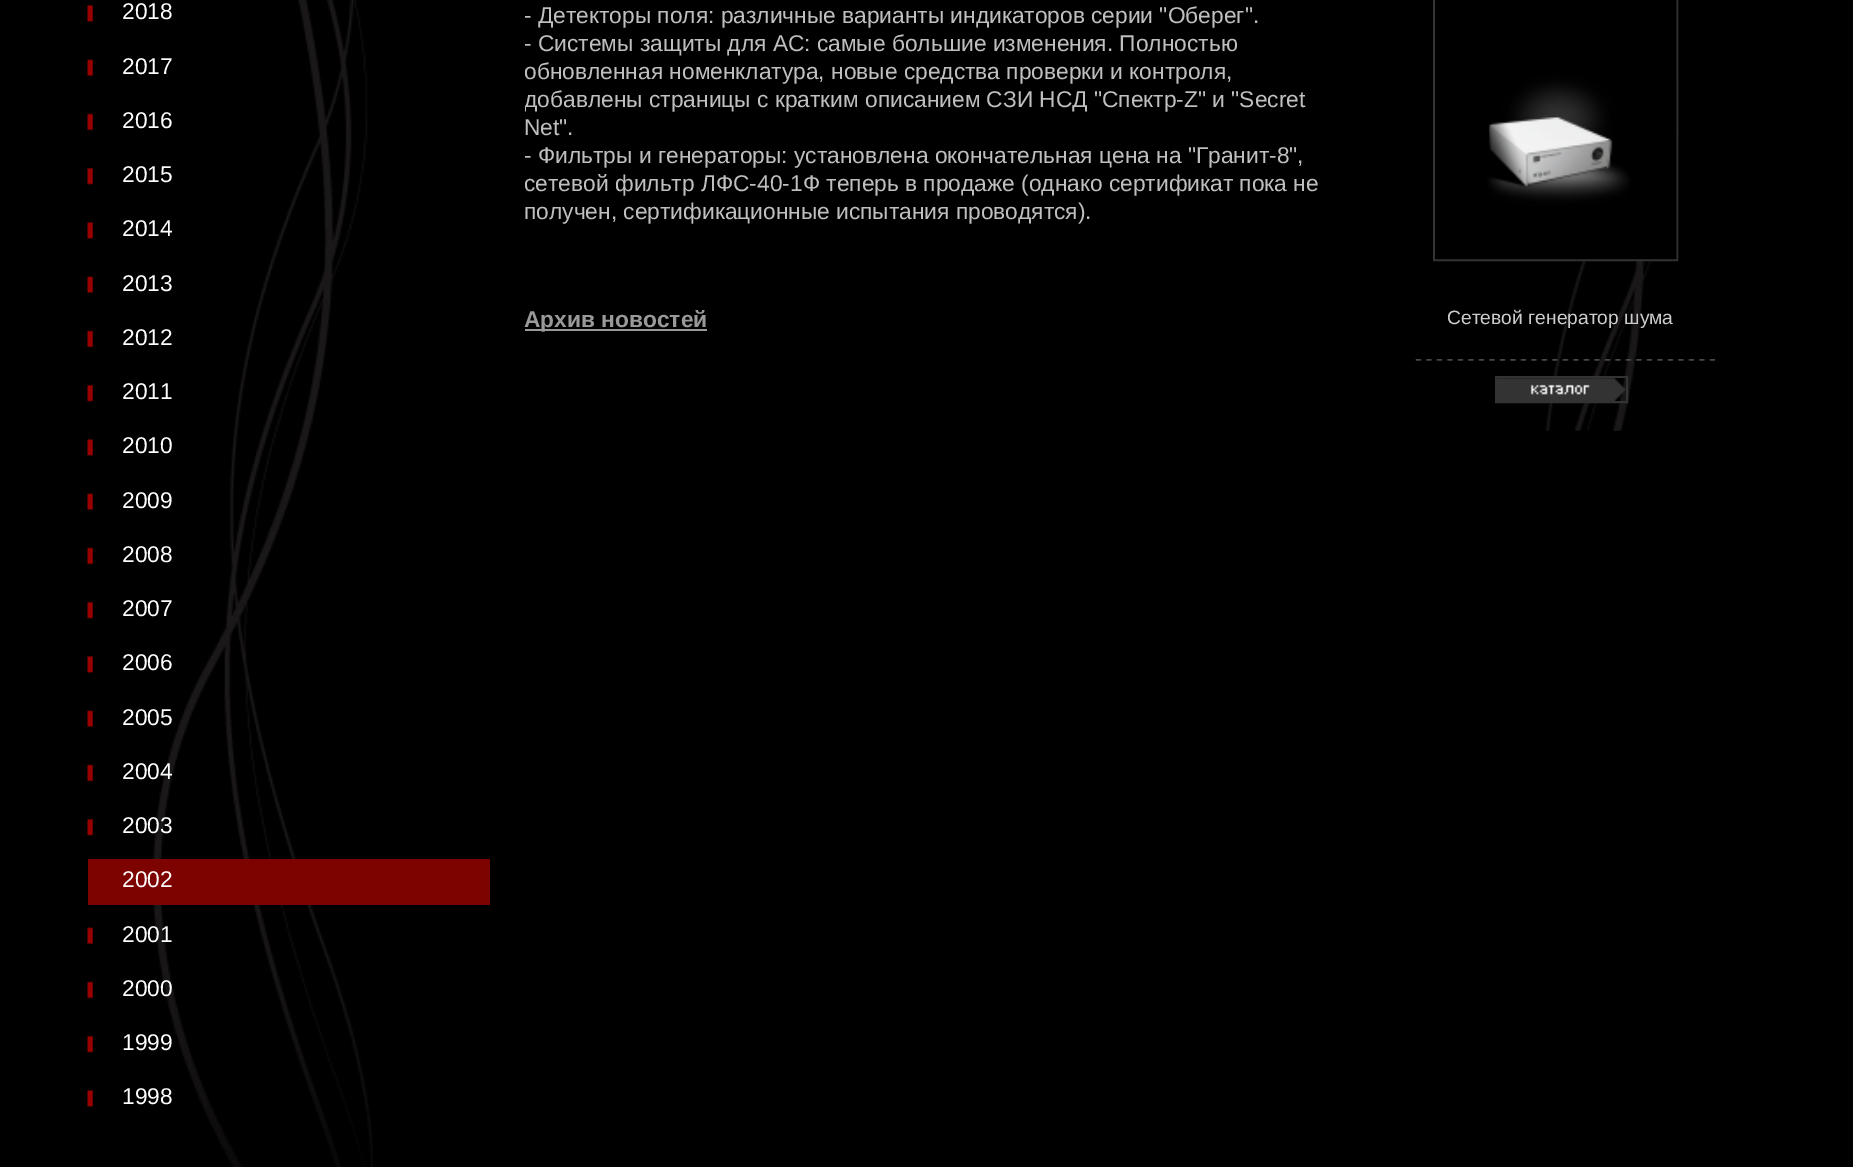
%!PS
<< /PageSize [1853 1167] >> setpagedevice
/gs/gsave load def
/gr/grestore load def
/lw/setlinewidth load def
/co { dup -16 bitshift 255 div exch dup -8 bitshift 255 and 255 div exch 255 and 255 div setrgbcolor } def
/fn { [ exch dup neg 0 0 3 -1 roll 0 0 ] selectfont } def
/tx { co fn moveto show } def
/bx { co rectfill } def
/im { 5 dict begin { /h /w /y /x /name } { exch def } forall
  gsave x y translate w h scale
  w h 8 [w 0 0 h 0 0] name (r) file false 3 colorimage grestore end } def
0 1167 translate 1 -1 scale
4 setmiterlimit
0 0 1853 1167 16#000000 bx
(media/1.raw) 152 0 221 1167 im
(media/2.raw) 87 5 6 17 im
(media/3.raw) 87 59 6 17 im
(media/4.raw) 87 113 6 18 im
(media/5.raw) 87 167 6 18 im
(media/2.raw) 87 222 6 17 im
(media/3.raw) 87 276 6 17 im
(media/4.raw) 87 330 6 18 im
(media/5.raw) 87 384 6 18 im
(media/2.raw) 87 439 6 17 im
(media/3.raw) 87 493 6 17 im
(media/4.raw) 87 547 6 18 im
(media/5.raw) 87 601 6 18 im
(media/2.raw) 87 656 6 17 im
(media/3.raw) 87 710 6 17 im
(media/4.raw) 87 764 6 18 im
(media/5.raw) 87 818 6 18 im
88 859 402 46 16#7D0301 bx
(media/6.raw) 87 927 6 17 im
(media/4.raw) 87 981 6 18 im
(media/5.raw) 87 1035 6 18 im
(media/2.raw) 87 1090 6 17 im
(media/7.raw) 1545 0 134 431 im
525 329 182 2 16#999999 bx
(media/8.raw) 1415 359 300 2 im
16#333333 co
2 lw
1434 -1 243 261 rectstroke
(media/9.raw) 1435 0 242 260 im
1496 377 131 25 rectstroke
(media/10.raw) 1497 378 129 23 im
(2018) 122 19 /LiberationSans-Regular 22.75 16#FFFFFF tx
(2017) 122 74 /LiberationSans-Regular 22.75 16#FFFFFF tx
(2016) 122 128 /LiberationSans-Regular 22.75 16#FFFFFF tx
(2015) 122 182 /LiberationSans-Regular 22.75 16#FFFFFF tx
(2014) 122 236 /LiberationSans-Regular 22.75 16#FFFFFF tx
(2013) 122 291 /LiberationSans-Regular 22.75 16#FFFFFF tx
(2012) 122 345 /LiberationSans-Regular 22.75 16#FFFFFF tx
(2011) 122 399 /LiberationSans-Regular 22.75 16#FFFFFF tx
(2010) 122 453 /LiberationSans-Regular 22.75 16#FFFFFF tx
(2009) 122 508 /LiberationSans-Regular 22.75 16#FFFFFF tx
(2008) 122 562 /LiberationSans-Regular 22.75 16#FFFFFF tx
(2007) 122 616 /LiberationSans-Regular 22.75 16#FFFFFF tx
(2006) 122 670 /LiberationSans-Regular 22.75 16#FFFFFF tx
(2005) 122 725 /LiberationSans-Regular 22.75 16#FFFFFF tx
(2004) 122 779 /LiberationSans-Regular 22.75 16#FFFFFF tx
(2003) 122 833 /LiberationSans-Regular 22.75 16#FFFFFF tx
(2002) 122 887 /LiberationSans-Regular 22.75 16#FFFFFF tx
(2001) 122 942 /LiberationSans-Regular 22.75 16#FFFFFF tx
(2000) 122 996 /LiberationSans-Regular 22.75 16#FFFFFF tx
(1999) 122 1050 /LiberationSans-Regular 22.75 16#FFFFFF tx
(1998) 122 1104 /LiberationSans-Regular 22.75 16#FFFFFF tx
(- Детекторы поля: различные варианты индикаторов серии "Оберег".) 524 23 /LiberationSans-Regular 22.75 16#BFBFBF tx
(- Системы защиты для АС: самые большие изменения. Полностью) 524 51 /LiberationSans-Regular 22.75 16#BFBFBF tx
(обновленная номенклатура, новые средства проверки и контроля,) 524 79 /LiberationSans-Regular 22.75 16#BFBFBF tx
gs
525 0 805 278 rectclip
(добавлены страницы с кратким описанием СЗИ НСД "Спектр-Z" и "Secret) 524 107 /LiberationSans-Regular 22.75 16#BFBFBF tx
gr
(Net".) 524 135 /LiberationSans-Regular 22.75 16#BFBFBF tx
(- Фильтры и генераторы: установлена окончательная цена на "Гранит-8",) 524 163 /LiberationSans-Regular 22.75 16#BFBFBF tx
(сетевой фильтр ЛФС-40-1Ф теперь в продаже \(однако сертификат пока не) 524 191 /LiberationSans-Regular 22.75 16#BFBFBF tx
(получен, сертификационные испытания проводятся\).) 524 219 /LiberationSans-Regular 22.75 16#BFBFBF tx
(Архив новостей) 524 327 /LiberationSans-Bold 22.75 16#999999 tx
(Сетевой генератор шума) 1447 324 /LiberationSans-Regular 19.25 16#CCCCCC tx
showpage
